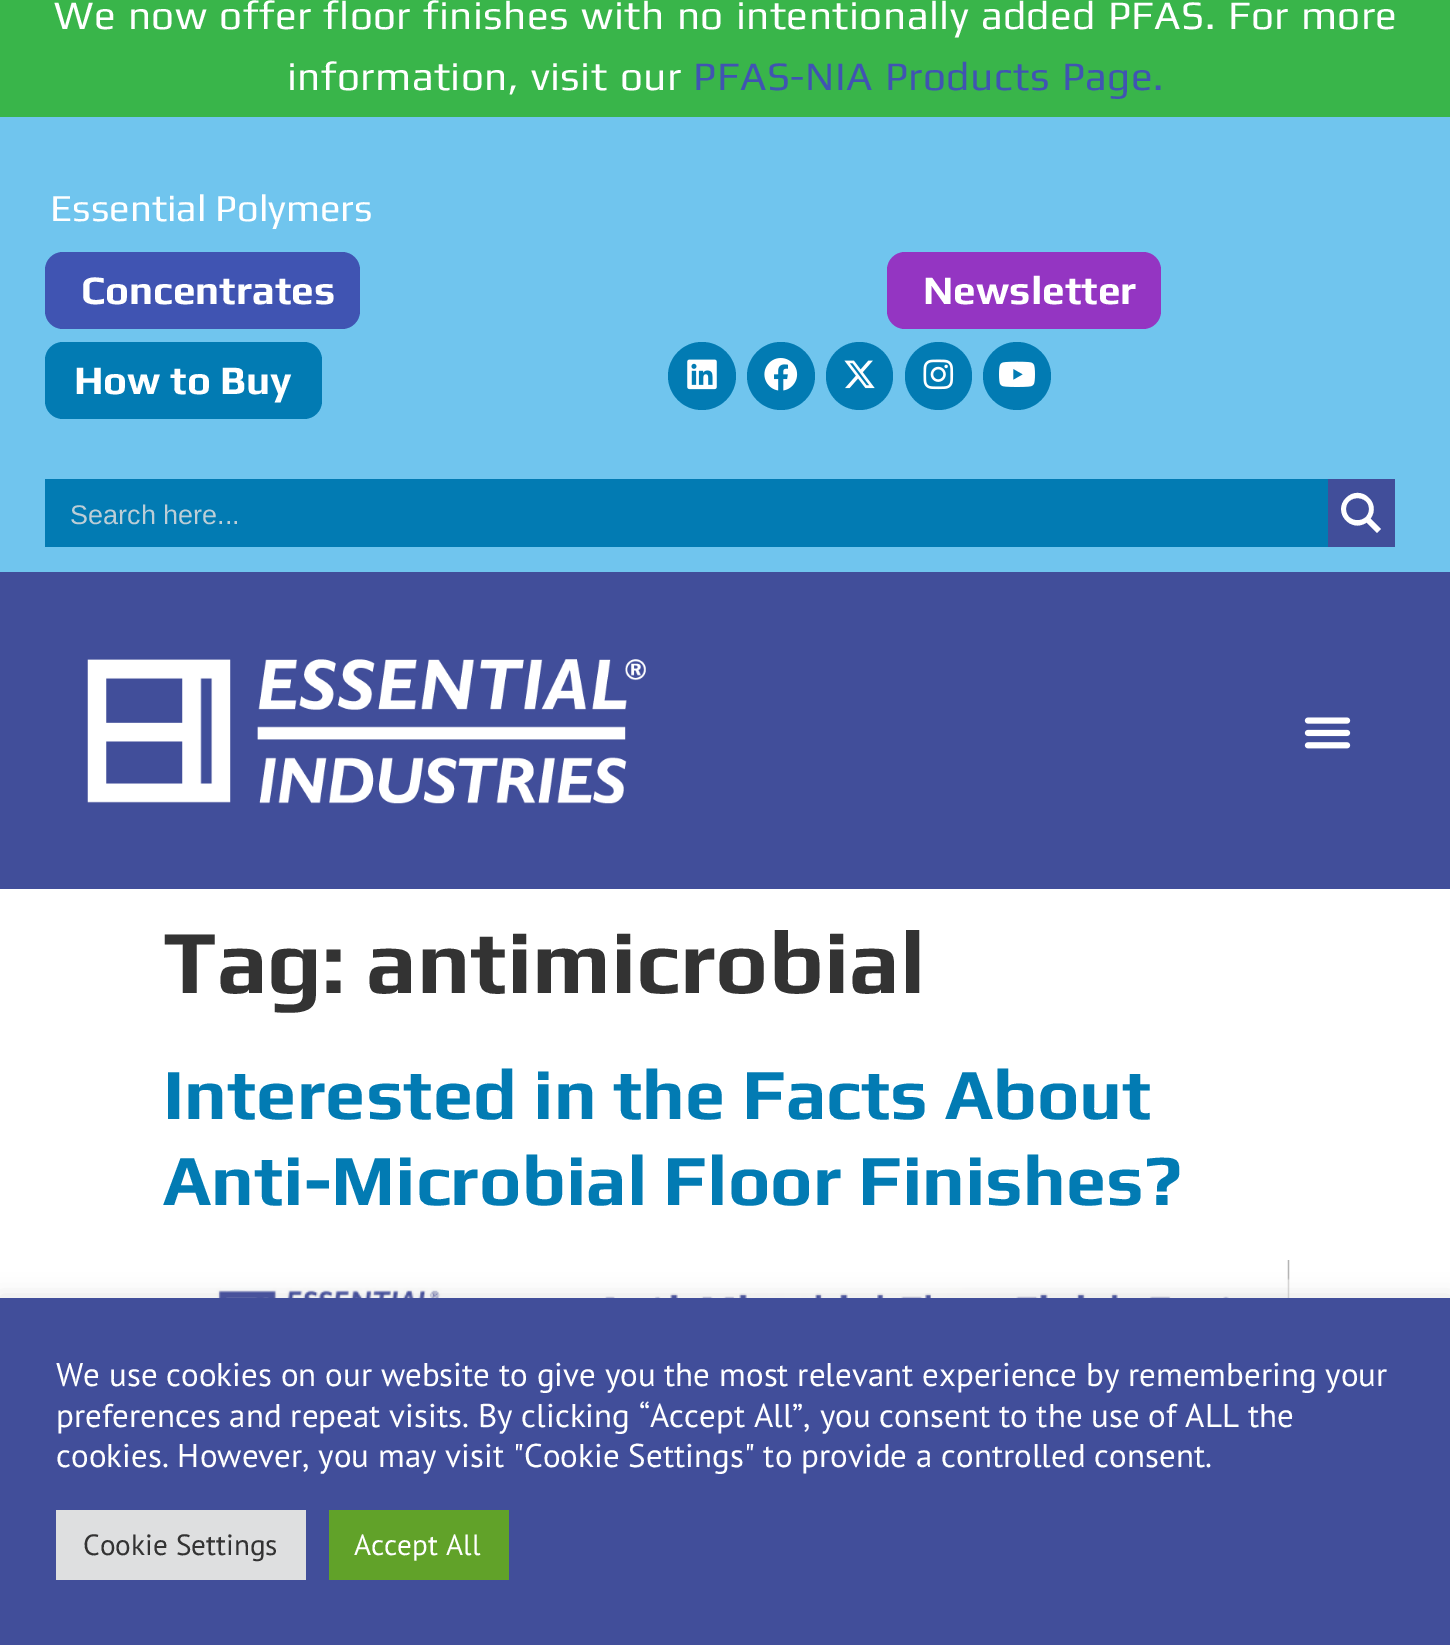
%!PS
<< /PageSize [1450 1645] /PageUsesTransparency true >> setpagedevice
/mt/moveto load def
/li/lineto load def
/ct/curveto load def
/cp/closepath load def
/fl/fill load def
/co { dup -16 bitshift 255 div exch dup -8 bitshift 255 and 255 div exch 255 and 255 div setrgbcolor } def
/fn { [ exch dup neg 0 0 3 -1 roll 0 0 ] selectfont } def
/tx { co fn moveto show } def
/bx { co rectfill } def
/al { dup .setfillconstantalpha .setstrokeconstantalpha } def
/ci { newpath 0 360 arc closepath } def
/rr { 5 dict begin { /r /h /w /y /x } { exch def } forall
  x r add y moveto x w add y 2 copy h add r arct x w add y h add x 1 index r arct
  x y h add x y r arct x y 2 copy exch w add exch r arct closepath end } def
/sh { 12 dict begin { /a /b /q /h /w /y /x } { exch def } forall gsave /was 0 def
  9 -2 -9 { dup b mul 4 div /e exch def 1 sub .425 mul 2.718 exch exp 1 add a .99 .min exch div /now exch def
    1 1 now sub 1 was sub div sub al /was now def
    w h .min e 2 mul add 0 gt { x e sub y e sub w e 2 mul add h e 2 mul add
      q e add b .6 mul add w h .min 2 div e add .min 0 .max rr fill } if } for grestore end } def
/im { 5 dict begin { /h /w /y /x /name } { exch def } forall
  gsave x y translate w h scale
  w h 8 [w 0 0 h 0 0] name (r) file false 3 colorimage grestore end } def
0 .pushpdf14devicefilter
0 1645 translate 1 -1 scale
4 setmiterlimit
0 0 1450 1645 16#FFFFFF bx
0 0 1450 117 16#39B54A bx
0 117 1450 455 16#70C5EE bx
16#4054B2 co
45 252 315 77 18 rr fl
16#9435C2 co
887 252 274 77 18 rr fl
16#027BB3 co
45 342 277 77 18 rr fl
702 376 34 ci fl
(media/1.raw) 687 359 30 31 im
781 376 34 ci fl
(media/2.raw) 764 358 34 33 im
826 342 67 68 33.5 rr fl
(media/3.raw) 844 360 31 29 im
905 342 67 68 33.5 rr fl
(media/4.raw) 923 359 31 31 im
1017 376 34 ci fl
(media/5.raw) 999 361 36 26 im
45 479 1283 68 16#027BB3 bx
1328 479 67 68 16#414E9A bx
16#FFFFFF co
1381 529 mt 1370.5 518.5 li 1382 503 1360.5 483.5 1346 498 ct 1332 512 1351 533.5 1366.5 522.5 ct 1377 533 li cp 1346 509 mt 1346 494.5 1369 494.5 1369 509 ct 1369 524 1346 524 1346 509 ct cp fl
0 572 1450 317 16#414E9A bx
(media/6.raw) 87 659 559 145 im
(media/7.raw) 1304 717 47 32 im
(media/8.raw) 164 1260 1126 38 im
16#ACABAB co
0 1296 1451 349 0 11 .3 sh
0 1298 1450 347 16#414E9A bx
56 1510 250 70 16#DEDFE0 bx
329 1510 180 70 16#61A229 bx
/Play-Regular 40.5 fn
16#FFFFFF co
54 29 mt 2.25 0 32 .45 0 (We now offer floor finishes with no intentionally added PFAS. For more) awidthshow
287 90 mt 2.25 0 32 .45 0 (information, visit our) awidthshow
16#4054B2 co
693 90 mt 2.25 0 32 .45 0 (PFAS-NIA Products Page.) awidthshow
(Essential Polymers) 50 221 /Play-Regular 38.25 16#FFFFFF tx
(Concentrates) 81 304 /Play-Bold 40.5 16#FFFFFF tx
(Newsletter) 923 304 /Play-Bold 40.5 16#FFFFFF tx
(How to Buy) 74 394 /Play-Bold 40.5 16#FFFFFF tx
(Search here...) 70 524 /LiberationSans-Regular 27 16#BCCED7 tx
(Tag: antimicrobial) 163 993 /Play-Bold 90 16#333333 tx
(Interested in the Facts About) 163 1119 /Play-Bold 72 16#027BB3 tx
(Anti-Microbial Floor Finishes?) 163 1205 /Play-Bold 72 16#027BB3 tx
(We use cookies on our website to give you the most relevant experience by remembering your) 56 1386 /PTSans-Regular 33 16#FFFFFF tx
(preferences and repeat visits. By clicking “Accept All”, you consent to the use of ALL the) 56 1427 /PTSans-Regular 33 16#FFFFFF tx
(cookies. However, you may visit "Cookie Settings" to provide a controlled consent.) 56 1467 /PTSans-Regular 33 16#FFFFFF tx
(Cookie Settings) 83 1555 /PTSans-Regular 29.25 16#333333 tx
(Accept All) 354 1555 /PTSans-Regular 29.25 16#FFFFFF tx
.poppdf14devicefilter showpage
